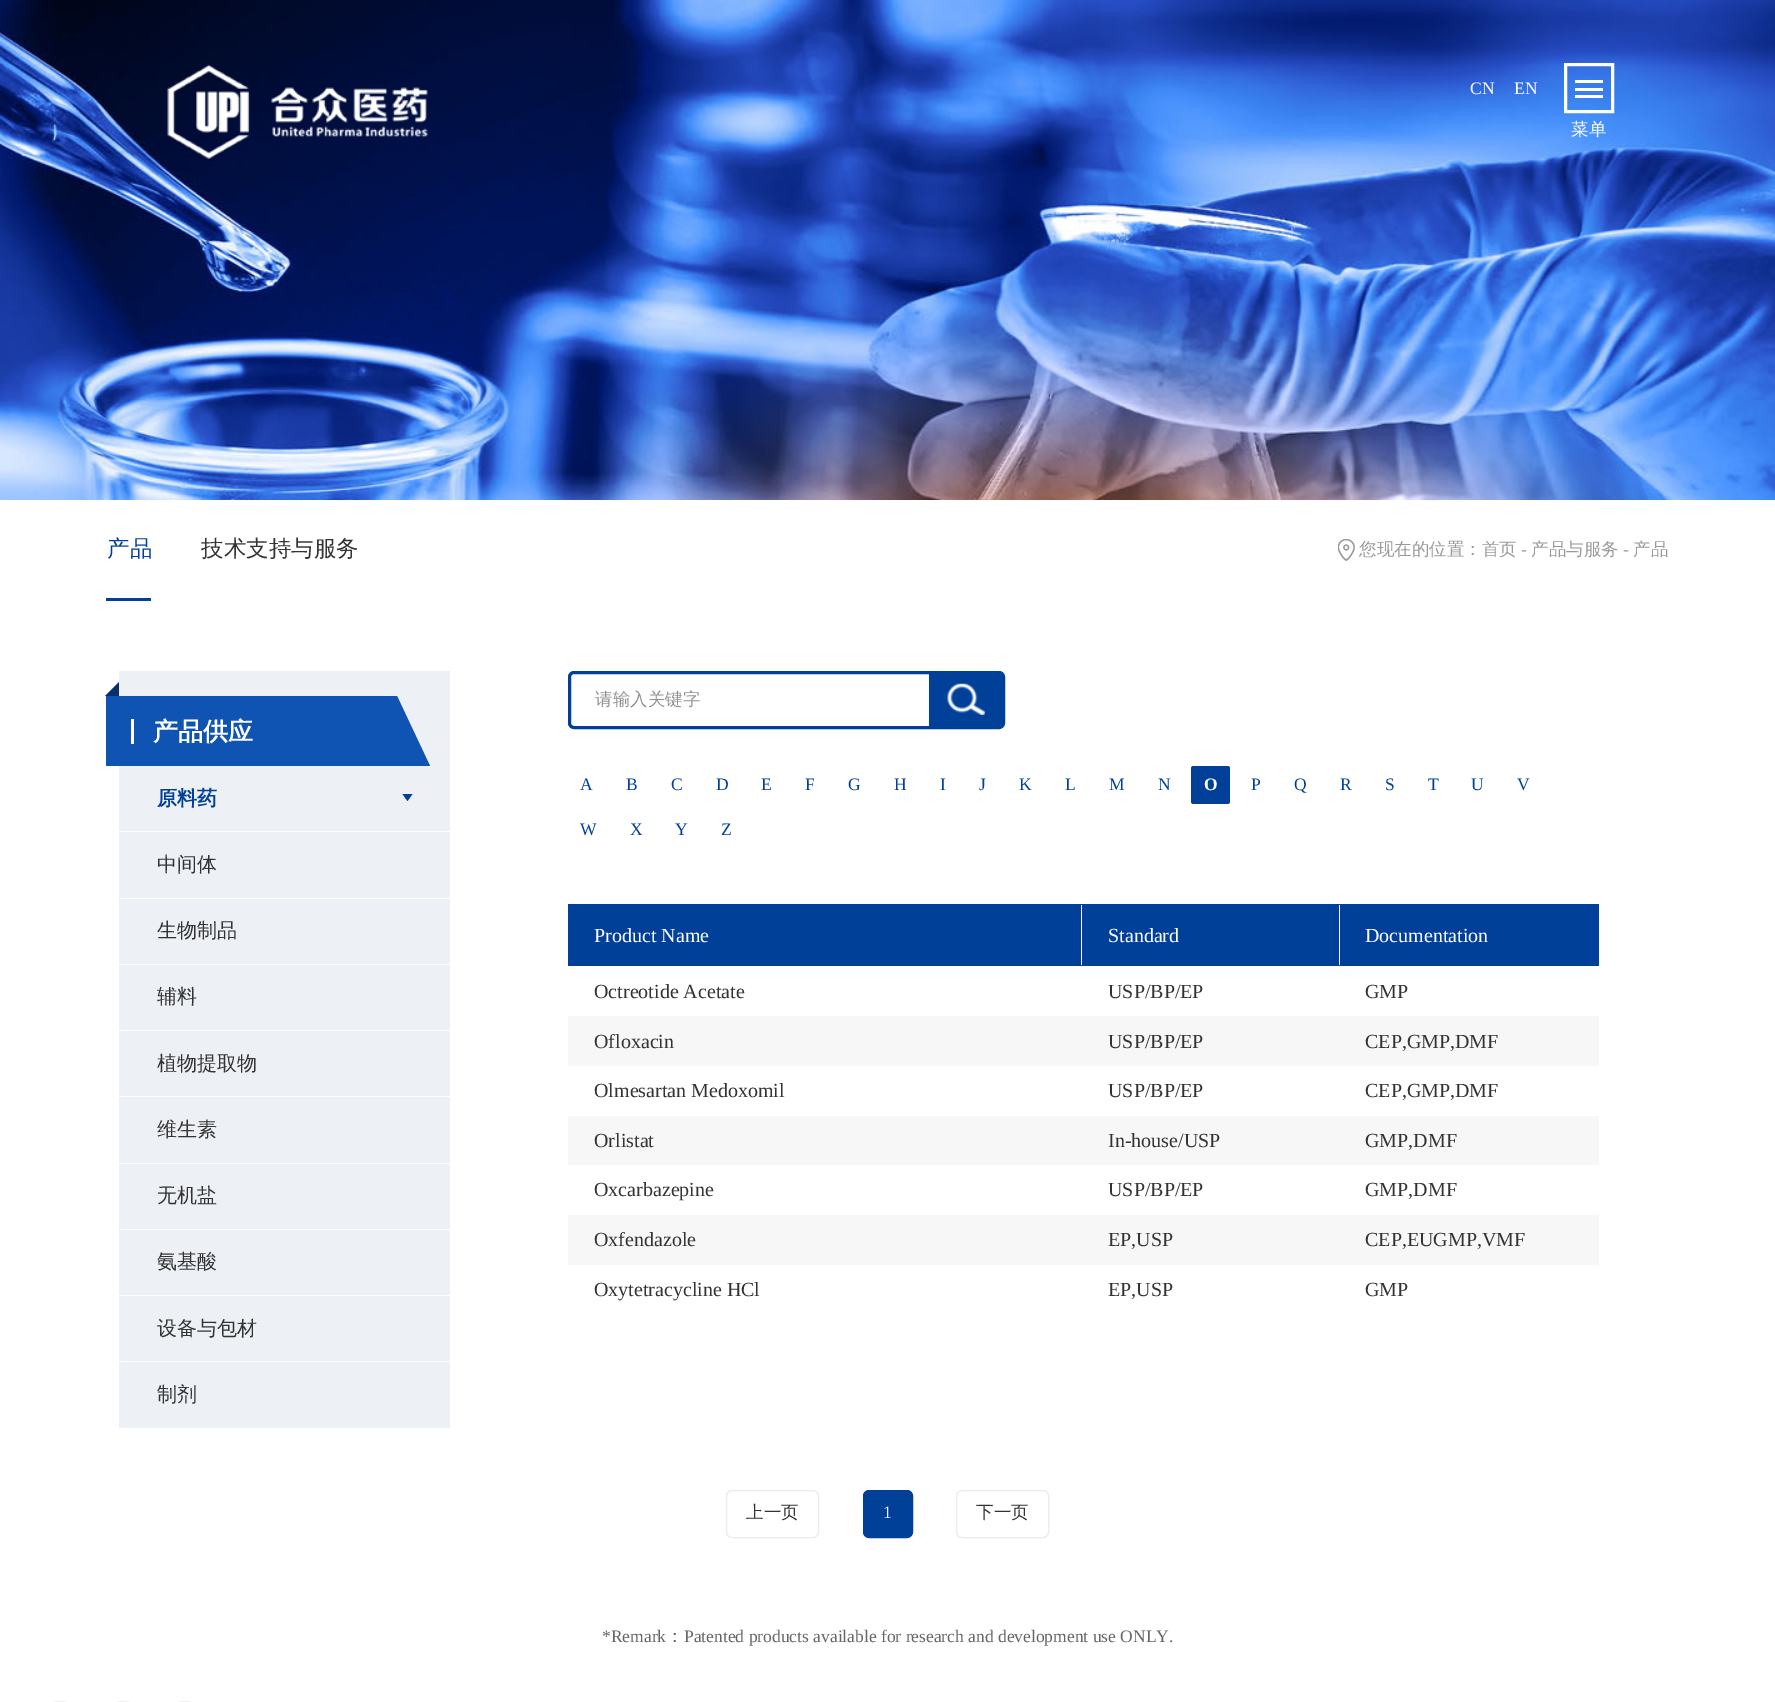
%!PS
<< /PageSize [1775 1702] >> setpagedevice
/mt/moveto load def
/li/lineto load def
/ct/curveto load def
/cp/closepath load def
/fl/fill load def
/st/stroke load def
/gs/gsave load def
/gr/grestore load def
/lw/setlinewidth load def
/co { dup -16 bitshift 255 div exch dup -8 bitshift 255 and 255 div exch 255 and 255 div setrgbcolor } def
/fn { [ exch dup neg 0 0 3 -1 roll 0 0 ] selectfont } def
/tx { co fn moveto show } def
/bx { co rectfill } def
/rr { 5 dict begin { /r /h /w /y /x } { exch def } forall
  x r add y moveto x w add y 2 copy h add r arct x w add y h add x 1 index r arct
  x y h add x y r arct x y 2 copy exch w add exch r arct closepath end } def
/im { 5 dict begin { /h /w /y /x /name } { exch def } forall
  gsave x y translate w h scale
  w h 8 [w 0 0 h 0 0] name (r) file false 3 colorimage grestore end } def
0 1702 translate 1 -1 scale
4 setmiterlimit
0 0 1775 1702 16#FFFFFF bx
(media/1.raw) 0 0 1775 500 im
(media/2.raw) 167 64 261 95 im
3 lw
1565.5 64.5 47 47 rectstroke
1575 80 28 3 16#FFFFFF bx
1575 88 28 3 16#FFFFFF bx
1575 95 28 3 16#FFFFFF bx
106 598 45 3 16#004099 bx
(media/3.raw) 1338 539 17 22 im
119 671 331 757 16#EDF0F5 bx
16#083069 co
105 696 mt 119 682 li 119 696 li cp fl
gs
106 671 344 757 rectclip
16#0F54B3 co
53 696 mt 397 696 li 430 766 li 85 766 li cp fl
gr
131 719 3 25 16#FFFFFF bx
119 831 331 1 16#FFFFFF bx
16#004099 co
402.5 794 mt 412.5 794 li 407.5 801 li cp fl
119 898 331 1 16#FFFFFF bx
119 964 331 1 16#FFFFFF bx
119 1030 331 1 16#FFFFFF bx
119 1096 331 1 16#FFFFFF bx
119 1163 331 1 16#FFFFFF bx
119 1229 331 1 16#FFFFFF bx
119 1295 331 1 16#FFFFFF bx
119 1361 331 1 16#FFFFFF bx
16#004099 co
569.5 672.5 434 55 4.5 rr st
929 674 mt 999 674 li 1001 674 1003 676 1003 678 ct 1003 722 li 1003 724 1001 726 999 726 ct 929 726 li cp fl
(media/4.raw) 947 683 38 32 im
1191 766 39 38 2.5 rr fl
568 904 1031 62 16#004099 bx
1081 905 1 60 16#FFFFFF bx
1339 905 1 60 16#FFFFFF bx
568 1016 1031 50 16#F7F7F7 bx
568 1116 1031 49 16#F7F7F7 bx
568 1215 1031 50 16#F7F7F7 bx
16#EBEBEB co
1 lw
726.5 1490.5 92 47 5.5 rr st
16#004099 co
863.5 1490.5 49 47 5.5 rr gs fl gr
st
16#EBEBEB co
956.5 1490.5 92 47 5.5 rr st
16#EEEEEE co
35 1701 50 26 25 rr fl
98 1701 50 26 25 rr fl
160 1701 50 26 25 rr fl
(CN) 1470 94 /LiberationSerif-Regular 17.5 16#FFFFFF tx
(EN) 1514 94 /LiberationSerif-Regular 17.5 16#FFFFFF tx
(菜单) 1571 135 /WenQuanYiZenHei-Medium 17.5 16#FFFFFF tx
(产品) 107 556 /WenQuanYiZenHei-Medium 22.5 16#004099 tx
(技术支持与服务) 201 556 /WenQuanYiZenHei-Medium 22.5 16#333333 tx
(您现在的位置：首页) 1359 555 /WenQuanYiZenHei-Medium 17.5 16#999999 tx
(-) 1521 555 /LiberationSerif-Regular 17.5 16#999999 tx
(产品与服务) 1531 555 /WenQuanYiZenHei-Medium 17.5 16#999999 tx
(-) 1623 555 /LiberationSerif-Regular 17.5 16#999999 tx
(产品) 1633 555 /WenQuanYiZenHei-Medium 17.5 16#999999 tx
(产品供应) 153 740 /WenQuanYiZenHei-Bold 25 16#FFFFFF tx
(原料药) 157 805 /WenQuanYiZenHei-Bold 20 16#004099 tx
(中间体) 157 871 /WenQuanYiZenHei-Medium 20 16#333333 tx
(生物制品) 157 937 /WenQuanYiZenHei-Medium 20 16#333333 tx
(辅料) 157 1003 /WenQuanYiZenHei-Medium 20 16#333333 tx
(植物提取物) 157 1070 /WenQuanYiZenHei-Medium 20 16#333333 tx
(维生素) 157 1136 /WenQuanYiZenHei-Medium 20 16#333333 tx
(无机盐) 157 1202 /WenQuanYiZenHei-Medium 20 16#333333 tx
(氨基酸) 157 1268 /WenQuanYiZenHei-Medium 20 16#333333 tx
(设备与包材) 157 1335 /WenQuanYiZenHei-Medium 20 16#333333 tx
(制剂) 157 1401 /WenQuanYiZenHei-Medium 20 16#333333 tx
(请输入关键字) 595 705 /WenQuanYiZenHei-Medium 17.5 16#919191 tx
(A) 580 790 /LiberationSerif-Regular 17.5 16#004099 tx
(B) 626 790 /LiberationSerif-Regular 17.5 16#004099 tx
(C) 671 790 /LiberationSerif-Regular 17.5 16#004099 tx
(D) 716 790 /LiberationSerif-Regular 17.5 16#004099 tx
(E) 761 790 /LiberationSerif-Regular 17.5 16#004099 tx
(F) 805 790 /LiberationSerif-Regular 17.5 16#004099 tx
(G) 848 790 /LiberationSerif-Regular 17.5 16#004099 tx
(H) 894 790 /LiberationSerif-Regular 17.5 16#004099 tx
(I) 940 790 /LiberationSerif-Regular 17.5 16#004099 tx
(J) 979 790 /LiberationSerif-Regular 17.5 16#004099 tx
(K) 1019 790 /LiberationSerif-Regular 17.5 16#004099 tx
(L) 1065 790 /LiberationSerif-Regular 17.5 16#004099 tx
(M) 1109 790 /LiberationSerif-Regular 17.5 16#004099 tx
(N) 1158 790 /LiberationSerif-Regular 17.5 16#004099 tx
(O) 1204 790 /LiberationSerif-Bold 17.5 16#FFFFFF tx
(P) 1251 790 /LiberationSerif-Regular 17.5 16#004099 tx
(Q) 1294 790 /LiberationSerif-Regular 17.5 16#004099 tx
(R) 1340 790 /LiberationSerif-Regular 17.5 16#004099 tx
(S) 1385 790 /LiberationSerif-Regular 17.5 16#004099 tx
(T) 1428 790 /LiberationSerif-Regular 17.5 16#004099 tx
(U) 1471 790 /LiberationSerif-Regular 17.5 16#004099 tx
(V) 1517 790 /LiberationSerif-Regular 17.5 16#004099 tx
(W) 580 835 /LiberationSerif-Regular 17.5 16#004099 tx
(X) 630 835 /LiberationSerif-Regular 17.5 16#004099 tx
(Y) 675 835 /LiberationSerif-Regular 17.5 16#004099 tx
(Z) 721 835 /LiberationSerif-Regular 17.5 16#004099 tx
(Product Name) 594 942 /LiberationSerif-Regular 20 16#FFFFFF tx
(Standard) 1108 942 /LiberationSerif-Regular 20 16#FFFFFF tx
(Documentation) 1365 942 /LiberationSerif-Regular 20 16#FFFFFF tx
(Octreotide Acetate) 594 998 /LiberationSerif-Regular 20 16#333333 tx
(USP/BP/EP) 1108 998 /LiberationSerif-Regular 20 16#333333 tx
(GMP) 1365 998 /LiberationSerif-Regular 20 16#333333 tx
(Ofloxacin) 594 1048 /LiberationSerif-Regular 20 16#333333 tx
(USP/BP/EP) 1108 1048 /LiberationSerif-Regular 20 16#333333 tx
(CEP,GMP,DMF) 1365 1048 /LiberationSerif-Regular 20 16#333333 tx
(Olmesartan Medoxomil) 594 1097 /LiberationSerif-Regular 20 16#333333 tx
(USP/BP/EP) 1108 1097 /LiberationSerif-Regular 20 16#333333 tx
(CEP,GMP,DMF) 1365 1097 /LiberationSerif-Regular 20 16#333333 tx
(Orlistat) 594 1147 /LiberationSerif-Regular 20 16#333333 tx
(In-house/USP) 1108 1147 /LiberationSerif-Regular 20 16#333333 tx
(GMP,DMF) 1365 1147 /LiberationSerif-Regular 20 16#333333 tx
(Oxcarbazepine) 594 1196 /LiberationSerif-Regular 20 16#333333 tx
(USP/BP/EP) 1108 1196 /LiberationSerif-Regular 20 16#333333 tx
(GMP,DMF) 1365 1196 /LiberationSerif-Regular 20 16#333333 tx
(Oxfendazole) 594 1246 /LiberationSerif-Regular 20 16#333333 tx
(EP,USP) 1108 1246 /LiberationSerif-Regular 20 16#333333 tx
(CEP,EUGMP,VMF) 1365 1246 /LiberationSerif-Regular 20 16#333333 tx
(Oxytetracycline HCl) 594 1296 /LiberationSerif-Regular 20 16#333333 tx
(EP,USP) 1108 1296 /LiberationSerif-Regular 20 16#333333 tx
(GMP) 1365 1296 /LiberationSerif-Regular 20 16#333333 tx
(上一页) 746 1518 /WenQuanYiZenHei-Medium 17.5 16#333333 tx
(1) 883 1518 /LiberationSerif-Regular 17.5 16#FFFFFF tx
(下一页) 976 1518 /WenQuanYiZenHei-Medium 17.5 16#333333 tx
(*Remark) 602 1642 /LiberationSerif-Regular 17.5 16#666666 tx
(：) 666 1642 /WenQuanYiZenHei-Medium 17.5 16#666666 tx
(Patented products available for research and development use ONLY.) 684 1642 /LiberationSerif-Regular 17.5 16#666666 tx
showpage
